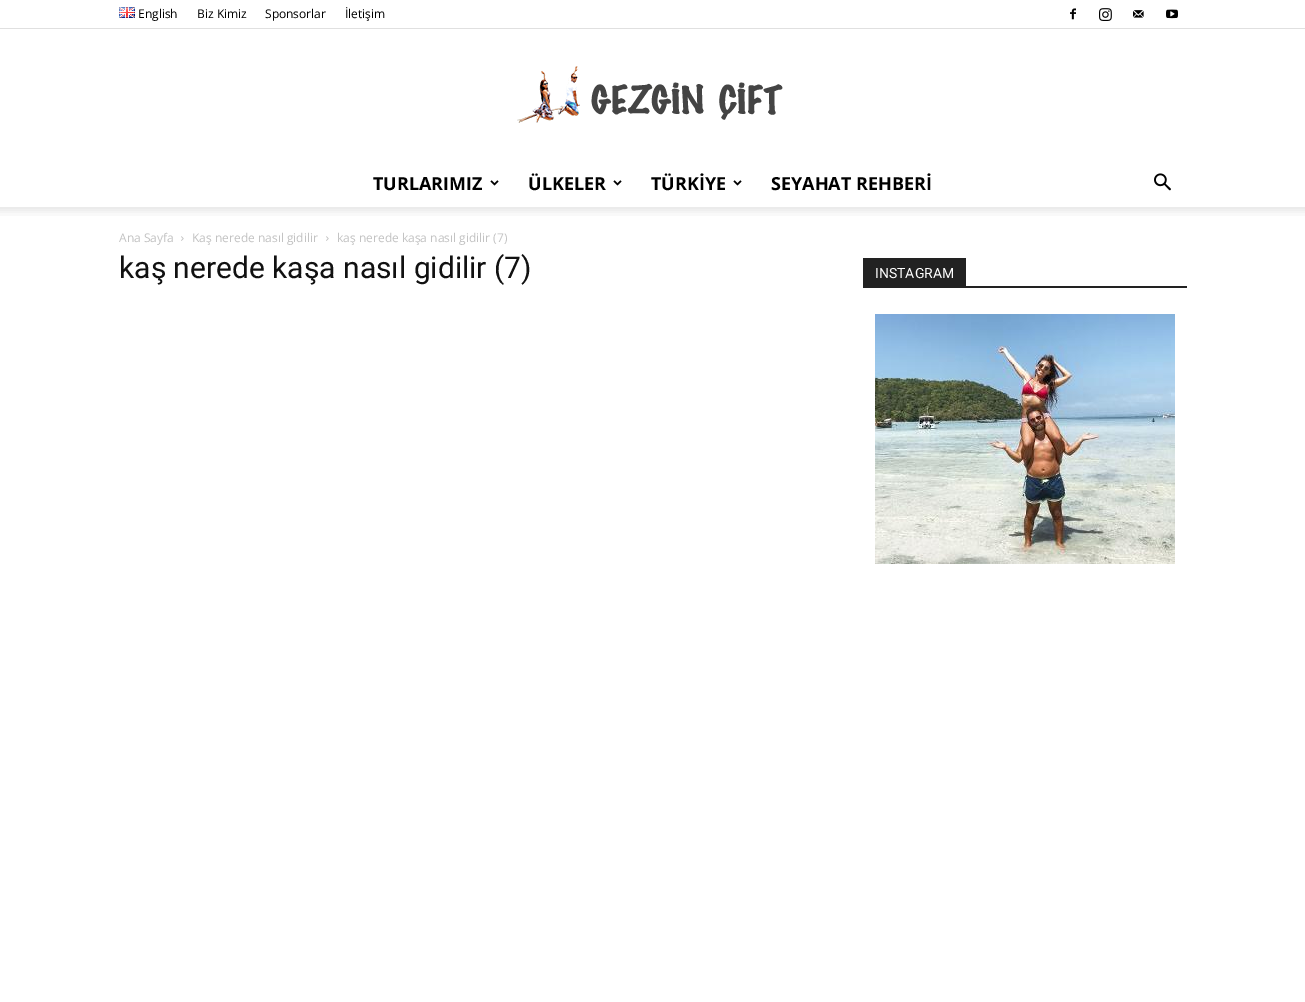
%!PS
<< /PageSize [1305 1002] >> setpagedevice
/co { dup -16 bitshift 255 div exch dup -8 bitshift 255 and 255 div exch 255 and 255 div setrgbcolor } def
/fn { [ exch dup neg 0 0 3 -1 roll 0 0 ] selectfont } def
/tx { co fn moveto show } def
/bx { co rectfill } def
/im { 5 dict begin { /h /w /y /x /name } { exch def } forall
  gsave x y translate w h scale
  w h 8 [w 0 0 h 0 0] name (r) file false 3 colorimage grestore end } def
0 1002 translate 1 -1 scale
4 setmiterlimit
0 0 1305 1002 16#FFFFFF bx
0 28 1305 1 16#E0E0E0 bx
(media/1.raw) 119 7 16 11 im
(media/2.raw) 1070 8 6 12 im
(media/3.raw) 1099 8 13 13 im
(media/4.raw) 1133 10 11 8 im
(media/5.raw) 1166 9 12 10 im
(media/6.raw) 517 66 266 57 im
(media/7.raw) 490 180 9 6 im
(media/7.raw) 613 180 9 6 im
(media/7.raw) 733 180 9 6 im
(media/8.raw) 1154 173 17 18 im
(media/9.raw) 0 207 1305 9 im
(media/10.raw) 181 236 3 5 im
(media/10.raw) 326 236 3 5 im
863 286 324 2 16#222222 bx
863 258 103 28 16#222222 bx
(media/11.raw) 875 314 300 250 im
(English) 138 18 /OpenSans-Regular 12 16#000000 tx
(Biz Kimiz) 197 18 /OpenSans-Regular 12 16#000000 tx
(Sponsorlar) 265 18 /OpenSans-Regular 12 16#000000 tx
(İletişim) 345 18 /OpenSans-Regular 12 16#000000 tx
(TURLARIMIZ) 373 190 /OpenSans-Bold 18 16#000000 tx
(ÜLKELER) 528 190 /OpenSans-Bold 18 16#000000 tx
(TÜRKİYE) 651 190 /OpenSans-Bold 18 16#000000 tx
(SEYAHAT REHBERİ) 771 190 /OpenSans-Bold 18 16#000000 tx
(Ana Sayfa) 119 242 /OpenSans-Regular 12 16#C3C3C3 tx
(Kaş nerede nasıl gidilir) 192 242 /OpenSans-Regular 12 16#C3C3C3 tx
(kaş nerede kaşa nasıl gidilir \(7\)) 337 242 /OpenSans-Regular 12 16#C3C3C3 tx
(kaş nerede kaşa nasıl gidilir \(7\)) 119 278 /Roboto-Regular 30 16#111111 tx
(INSTAGRAM) 875 278 /Roboto-Regular 14 16#FFFFFF tx
showpage
